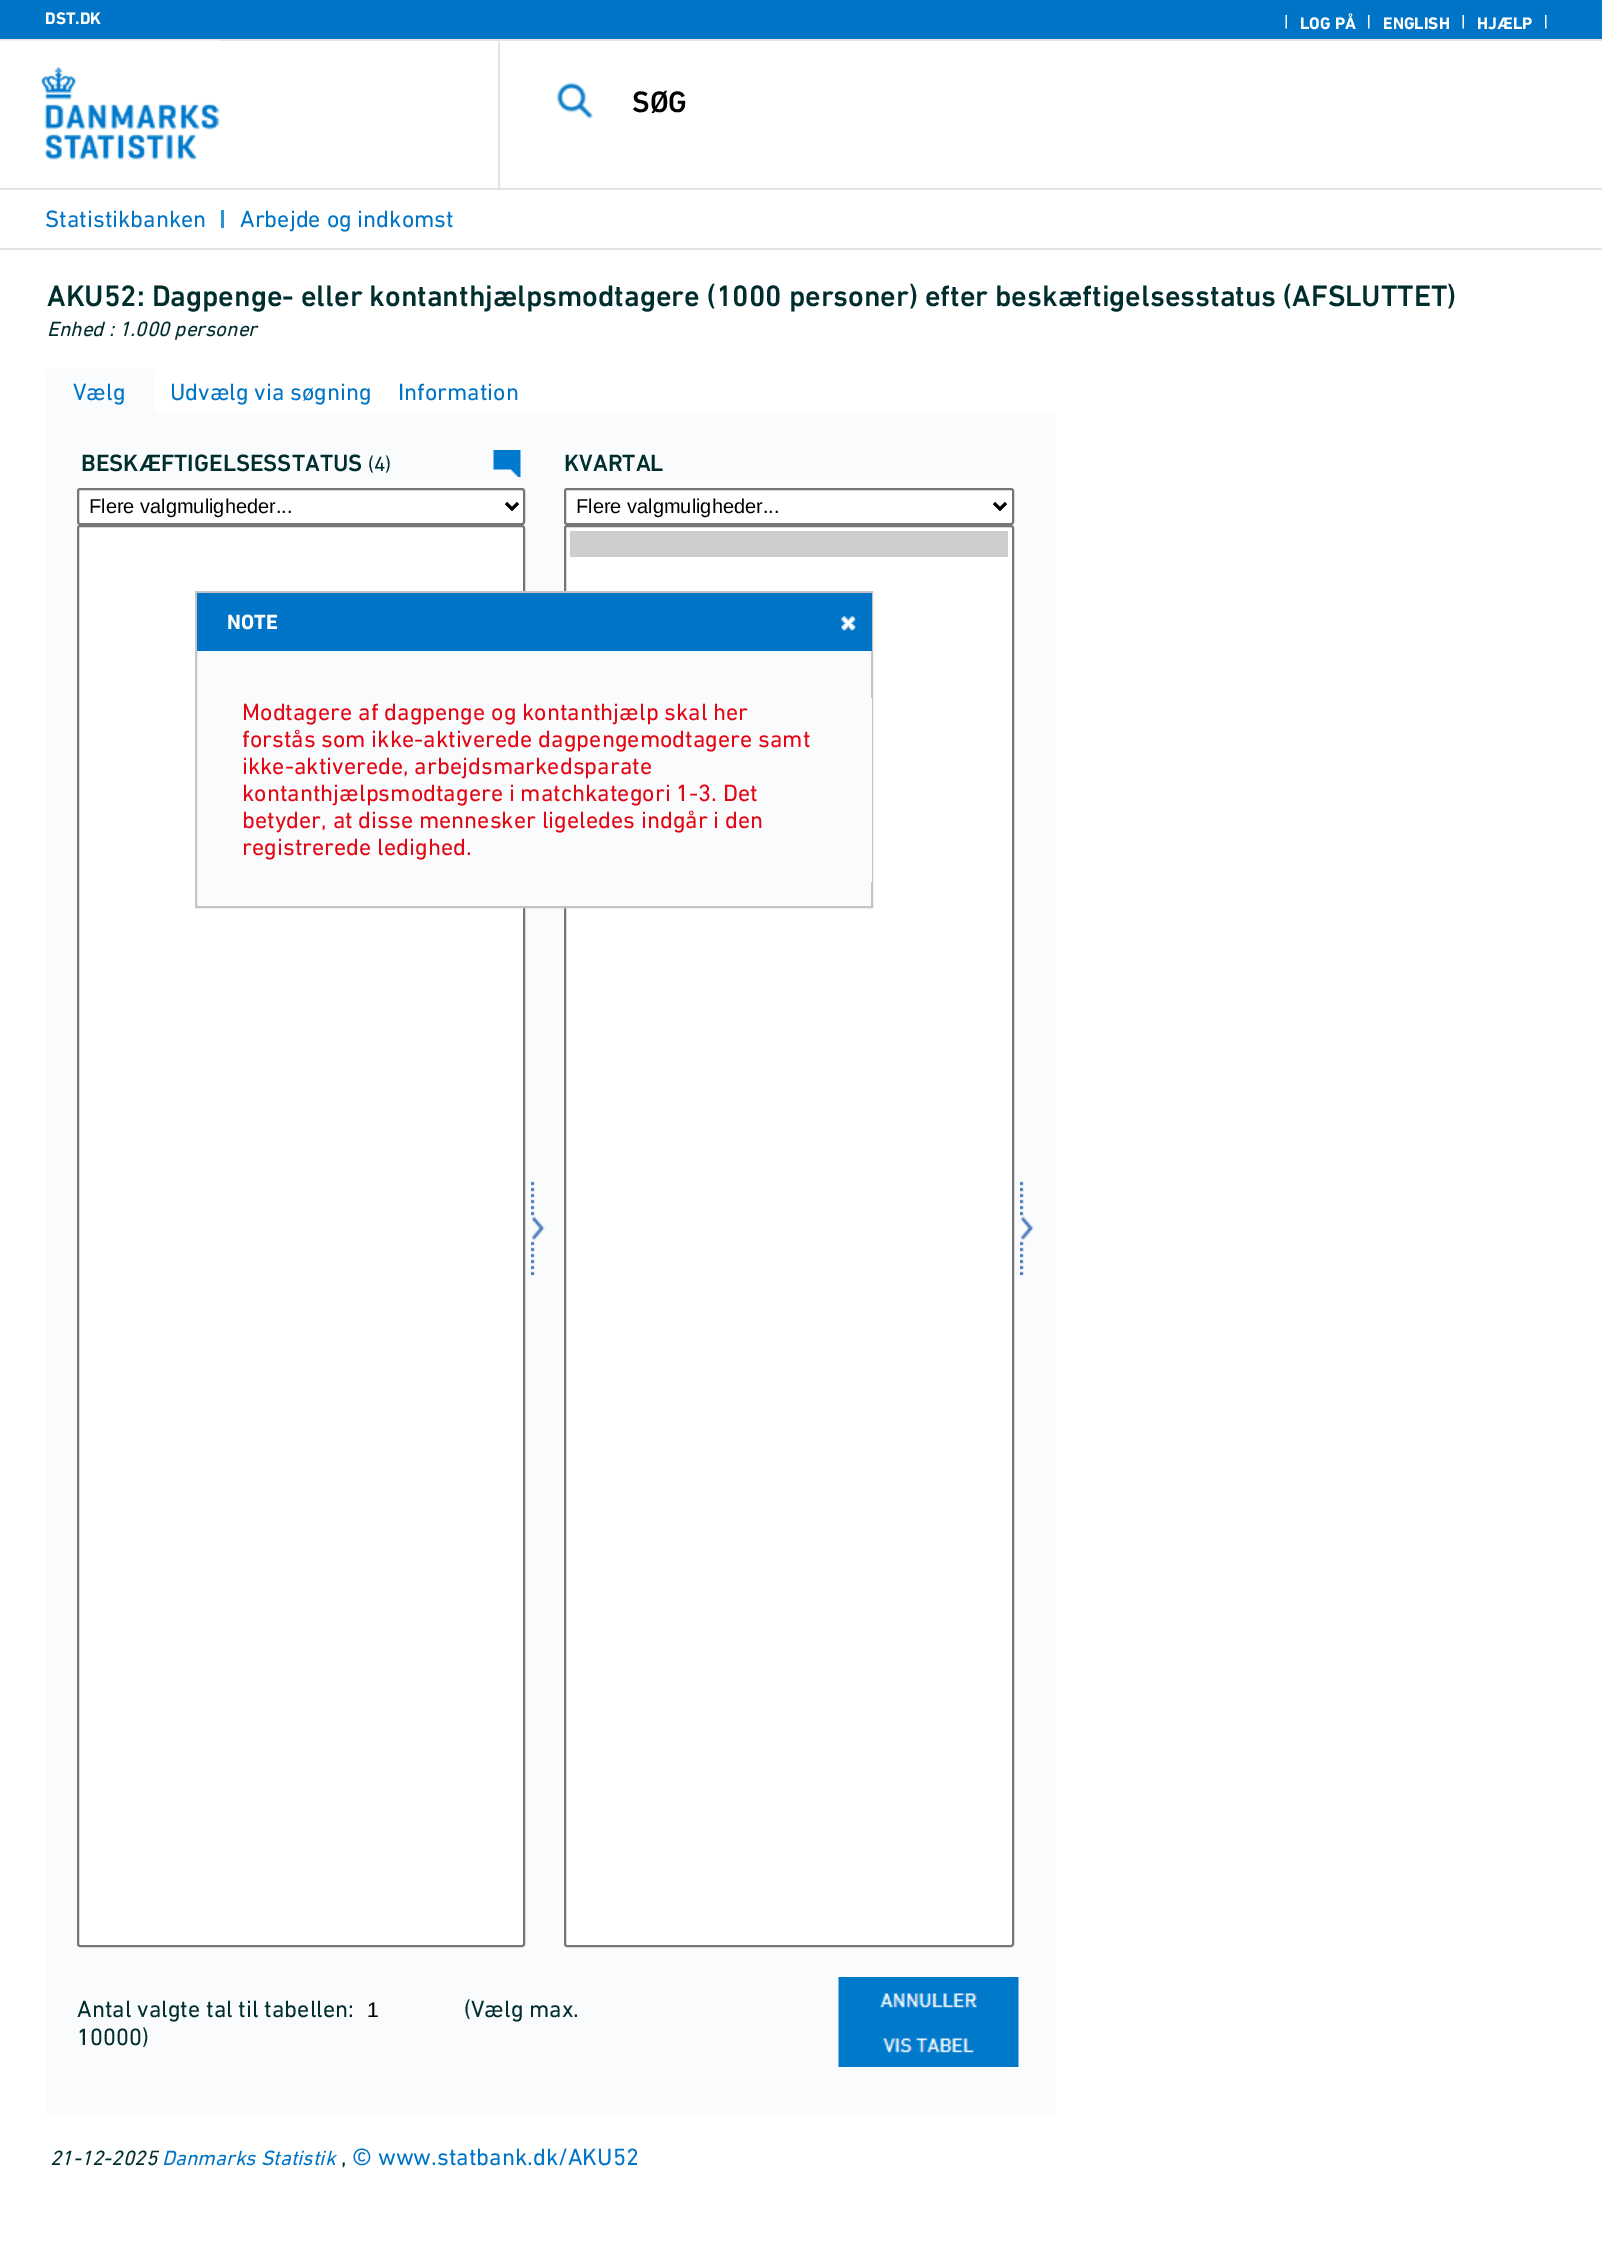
%!PS
<< /PageSize [1602 2247] >> setpagedevice
/mt/moveto load def
/li/lineto load def
/fl/fill load def
/st/stroke load def
/gs/gsave load def
/gr/grestore load def
/lw/setlinewidth load def
/co { dup -16 bitshift 255 div exch dup -8 bitshift 255 and 255 div exch 255 and 255 div setrgbcolor } def
/fn { [ exch dup neg 0 0 3 -1 roll 0 0 ] selectfont } def
/tx { co fn moveto show } def
/bx { co rectfill } def
/rr { 5 dict begin { /r /h /w /y /x } { exch def } forall
  x r add y moveto x w add y 2 copy h add r arct x w add y h add x 1 index r arct
  x y h add x y r arct x y 2 copy exch w add exch r arct closepath end } def
/im { 5 dict begin { /h /w /y /x /name } { exch def } forall
  gsave x y translate w h scale
  w h 8 [w 0 0 h 0 0] name (r) file false 3 colorimage grestore end } def
0 2247 translate 1 -1 scale
4 setmiterlimit
0 0 1602 2247 16#FFFFFF bx
0 0 1602 39 16#0074C6 bx
0 39 1602 2 16#E4E4E4 bx
(media/1.raw) 0 40 500 146 im
0 188 1602 2 16#E4E4E4 bx
(media/2.raw) 1285 15 2 14 im
(media/3.raw) 1368 15 2 14 im
(media/2.raw) 1462 15 2 14 im
(media/3.raw) 1545 15 2 14 im
498 41 2 148 16#E4E4E4 bx
(media/4.raw) 556 82 37 37 im
0 248 1602 2 16#E4E4E4 bx
221 210 3 18 16#2F92D4 bx
45 369 110 44 16#F9FBFD bx
45 413 1011 1702 16#F9FBFD bx
(media/5.raw) 493 450 28 27 im
16#FFFFFF co
78 489 446 35 2 rr gs fl gr
16#767676 co
2 lw
st
16#000000 co
3 lw
506 503 mt 512 509 li 518 503 li st
16#FFFFFF co
78 526 446 1420 2 rr gs fl gr
16#767676 co
2 lw
st
16#FFFFFF co
565 489 448 35 2 rr gs fl gr
16#767676 co
st
16#000000 co
3 lw
994 503 mt 1000 509 li 1006 503 li st
16#FFFFFF co
565 526 448 1420 2 rr gs fl gr
16#767676 co
2 lw
st
570 531 438 26 16#CECECE bx
(media/6.raw) 531 1181 14 94 im
(media/7.raw) 1020 1181 14 94 im
(media/8.raw) 838 1977 181 45 im
(media/9.raw) 838 2022 181 45 im
197 651 674 255 16#F9FBFD bx
16#C5C5C5 co
196 592 676 315 rectstroke
197 593 675 58 16#0074C6 bx
(media/10.raw) 841 616 15 15 im
871 698 1 184 16#F9FBFD bx
(DST.DK) 45 24 /DINNext-Bold 17 16#FFFFFF tx
(LOG PÅ) 1300 29 /DINNext-Bold 17 16#FFFFFF tx
(ENGLISH) 1383 29 /DINNext-Bold 17 16#FFFFFF tx
(HJÆLP) 1477 29 /DINNext-Bold 17 16#FFFFFF tx
(SØG) 632 112 /DINNext-Medium 30 16#000000 tx
(Statistikbanken) 45 227 /DINNext-Regular 24 16#0074C6 tx
(Arbejde og indkomst) 240 227 /DINNext-Regular 24 16#0074C6 tx
(AKU52: Dagpenge- eller kontanthjælpsmodtagere \(1000 personer\) efter beskæftigelsesstatus \(AFSLUTTET\)) 47 306 /DINNext-Medium 30 16#002E2E tx
(Enhed : 1.000 personer) 47 336 /DINNext-Italic 21 16#002E2E tx
(Vælg) 73 400 /DINNext-Regular 24 16#0074C6 tx
(Udvælg via søgning) 170 400 /DINNext-Regular 24 16#0074C6 tx
(Information) 398 400 /DINNext-Regular 24 16#0074C6 tx
(BESKÆFTIGELSESSTATUS) 81 471 /DINNext-Medium 24 16#002E2E tx
(\(4\)) 368 471 /DINNext-Regular 21 16#002E2E tx
(KVARTAL) 564 471 /DINNext-Medium 24 16#002E2E tx
(Flere valgmuligheder...) 89 513 /LiberationSans-Regular 20 16#000000 tx
(Flere valgmuligheder...) 576 513 /LiberationSans-Regular 20 16#000000 tx
(Antal valgte tal til tabellen:) 77 2017 /DINNext-Regular 24 16#002E2E tx
(1) 367 2017 /LiberationSans-Regular 21 16#000000 tx
(\(Vælg max.) 464 2017 /DINNext-Regular 24 16#002E2E tx
(10000\)) 77 2045 /DINNext-Regular 24 16#002E2E tx
(21-12-2025) 50 2165 /DINNext-Italic 21 16#002E2E tx
(Danmarks Statistik) 162 2165 /DINNext-Italic 21 16#0074C6 tx
(,) 341 2165 /DINNext-Regular 24 16#002E2E tx
(© www.statbank.dk/AKU52) 352 2165 /DINNext-Regular 24 16#0074C6 tx
(NOTE) 227 629 /DINNext-Bold 21 16#FFFFFF tx
(Modtagere af dagpenge og kontanthjælp skal her) 242 720 /DINNext-Regular 24 16#E30613 tx
(forstås som ikke-aktiverede dagpengemodtagere samt) 242 747 /DINNext-Regular 24 16#E30613 tx
(ikke-aktiverede, arbejdsmarkedsparate) 242 774 /DINNext-Regular 24 16#E30613 tx
(kontanthjælpsmodtagere i matchkategori 1-3. Det) 242 801 /DINNext-Regular 24 16#E30613 tx
(betyder, at disse mennesker ligeledes indgår i den) 242 828 /DINNext-Regular 24 16#E30613 tx
(registrerede ledighed.) 242 855 /DINNext-Regular 24 16#E30613 tx
showpage
